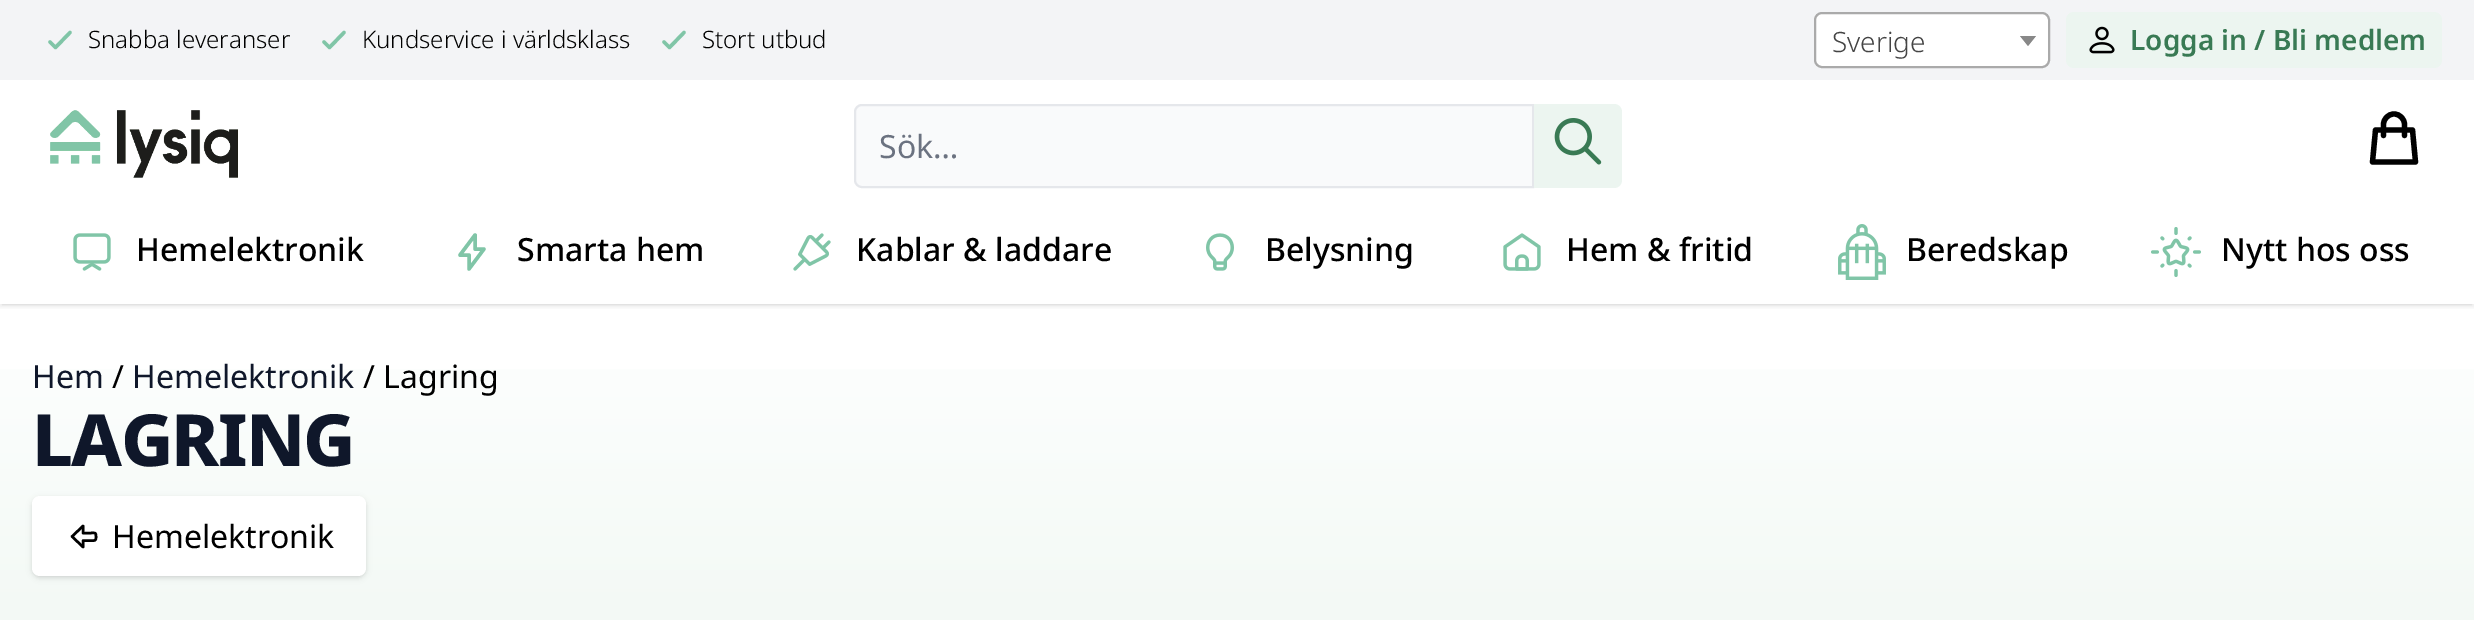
%!PS
<< /PageSize [2474 620] /PageUsesTransparency true >> setpagedevice
/mt/moveto load def
/li/lineto load def
/ct/curveto load def
/cp/closepath load def
/fl/fill load def
/st/stroke load def
/gs/gsave load def
/gr/grestore load def
/lw/setlinewidth load def
/co { dup -16 bitshift 255 div exch dup -8 bitshift 255 and 255 div exch 255 and 255 div setrgbcolor } def
/fn { [ exch dup neg 0 0 3 -1 roll 0 0 ] selectfont } def
/tx { co fn moveto show } def
/bx { co rectfill } def
/al { dup .setfillconstantalpha .setstrokeconstantalpha } def
/rr { 5 dict begin { /r /h /w /y /x } { exch def } forall
  x r add y moveto x w add y 2 copy h add r arct x w add y h add x 1 index r arct
  x y h add x y r arct x y 2 copy exch w add exch r arct closepath end } def
/sh { 12 dict begin { /a /b /q /h /w /y /x } { exch def } forall gsave /was 0 def
  9 -2 -9 { dup b mul 4 div /e exch def 1 sub .425 mul 2.718 exch exp 1 add a .99 .min exch div /now exch def
    1 1 now sub 1 was sub div sub al /was now def
    w h .min e 2 mul add 0 gt { x e sub y e sub w e 2 mul add h e 2 mul add
      q e add b .6 mul add w h .min 2 div e add .min 0 .max rr fill } if } for grestore end } def
/im { 5 dict begin { /h /w /y /x /name } { exch def } forall
  gsave x y translate w h scale
  w h 8 [w 0 0 h 0 0] name (r) file false 3 colorimage grestore end } def
0 .pushpdf14devicefilter
0 620 translate 1 -1 scale
4 setmiterlimit
0 0 2474 620 16#FFFFFF bx
gs
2 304 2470 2 rectclip
16#000000 co
2 4 2470 300 0 2 .1 sh
gr
gs
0 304 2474 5 rectclip
16#000000 co
0 2 2474 304 0 3 .1 sh
gr
0 0 2474 80 16#F3F4F6 bx
16#80C5A7 co
3.5 lw
1 setlinecap
1 setlinejoin
50 42 mt 55.5 47.5 li 70 32.5 li st
324 42 mt 329.5 47.5 li 344 32.5 li st
664 42 mt 669.5 47.5 li 684 32.5 li st
16#FFFFFF co
1815 13 234 54 7 rr gs fl gr
16#AAAAAA co
2 lw
0 setlinecap
0 setlinejoin
st
16#888888 co
2020 36 mt 2036 36 li 2028 46 li cp fl
16#ECF5F0 co
2066 12 376 56 8 rr fl
(media/1.raw) 2089 26 26 28 im
(media/2.raw) 50 110 188 68 im
16#F9FAFB co
862 105 mt 1533 105 li 1533 187 li 862 187 li 858 187 855 184 855 180 ct 855 112 li 855 108 858 105 862 105 ct cp gs fl gr
16#E5E7EB co
st
16#ECF5F0 co
1534 104 mt 1614 104 li 1618.5 104 1622 107.5 1622 112 ct 1622 180 li 1622 184.5 1618.5 188 1614 188 ct 1534 188 li cp fl
(media/3.raw) 1554 118 48 47 im
16#000000 co
5.3 lw
1 setlinecap
1 setlinejoin
2404.5 135.5 mt 2404.5 124.5 li 2404.5 119 2400 114 2394 114 ct 2388 114 2383.5 119 2383.5 124.5 ct 2383.5 135.5 li 2375.5 130 mt 2412.5 130 li 2415.5 162 li 2372.5 162 li cp st
(media/4.raw) 73 233 38 38 im
16#80C5A7 co
3.5 lw
469 255 mt 460 255 li 475 235 li 475 249 li 484 249 li 469 269 li cp st
(media/5.raw) 793 233 38 38 im
(media/6.raw) 1206 233 28 38 im
(media/7.raw) 1503 233 38 38 im
(media/8.raw) 1838 224 48 56 im
(media/9.raw) 2151 227 50 50 im
gs 0 369 mt 2474 369 li 2474 620 li 0 620 li cp clip newpath
<< /ShadingType 2 /ColorSpace /DeviceRGB /Coords [1237 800 1237 304] /Extend [true true] /Function << /FunctionType 2 /Domain [0 1] /C0 [.925 .961 .941] /C1 [1 1 1] /N 1 >> >> shfill gr
16#000000 co
34 500 330 76 6 2 .1 sh
32 498 334 80 8 3 .1 sh
16#FFFFFF co
32 496 334 80 8 rr fl
16#000000 co
2.5 lw
72 536.5 mt 83 526 li 83 533 li 90.5 533 li 95.5 533 96 532 96 537 ct 96 541.5 94.5 540.5 90.5 540.5 ct 83 540.5 li 83 547 li cp st
(Snabba leveranser) 88 48 /NotoSans-Light 24 16#000000 tx
(Kundservice i världsklass) 362 48 /NotoSans-Light 24 16#000000 tx
(Stort utbud) 702 48 /NotoSans-Light 24 16#000000 tx
(Sverige) 1832 52 /NotoSans-Light 28 16#444444 tx
(Logga in / Bli medlem) 2130 50 /NotoSans-SemiBold 28 16#397A54 tx
(Sök…) 879 158 /NotoSans-Regular 32 16#6B7280 tx
(Hemelektronik) 136 261 /NotoSans-Medium 32 16#000000 tx
(Smarta hem) 517 261 /NotoSans-Medium 32 16#000000 tx
(Kablar & laddare) 856 261 /NotoSans-Medium 32 16#000000 tx
(Belysning) 1265 261 /NotoSans-Medium 32 16#000000 tx
(Hem & fritid) 1566 261 /NotoSans-Medium 32 16#000000 tx
(Beredskap) 1906 261 /NotoSans-Medium 32 16#000000 tx
(Nytt hos oss) 2221 261 /NotoSans-Medium 32 16#000000 tx
(Hem) 32 388 /NotoSans-Regular 32 16#0F172A tx
(/) 112 388 /NotoSans-Regular 32 16#000000 tx
(Hemelektronik) 132 388 /NotoSans-Regular 32 16#0F172A tx
(/ Lagring) 363 388 /NotoSans-Regular 32 16#000000 tx
/NotoSans-ExtraBold 72 fn
16#0F172A co
32 466 mt -1.75 0 (LAGRING) ashow
(Hemelektronik) 112 548 /NotoSans-Regular 32 16#000000 tx
.poppdf14devicefilter showpage
